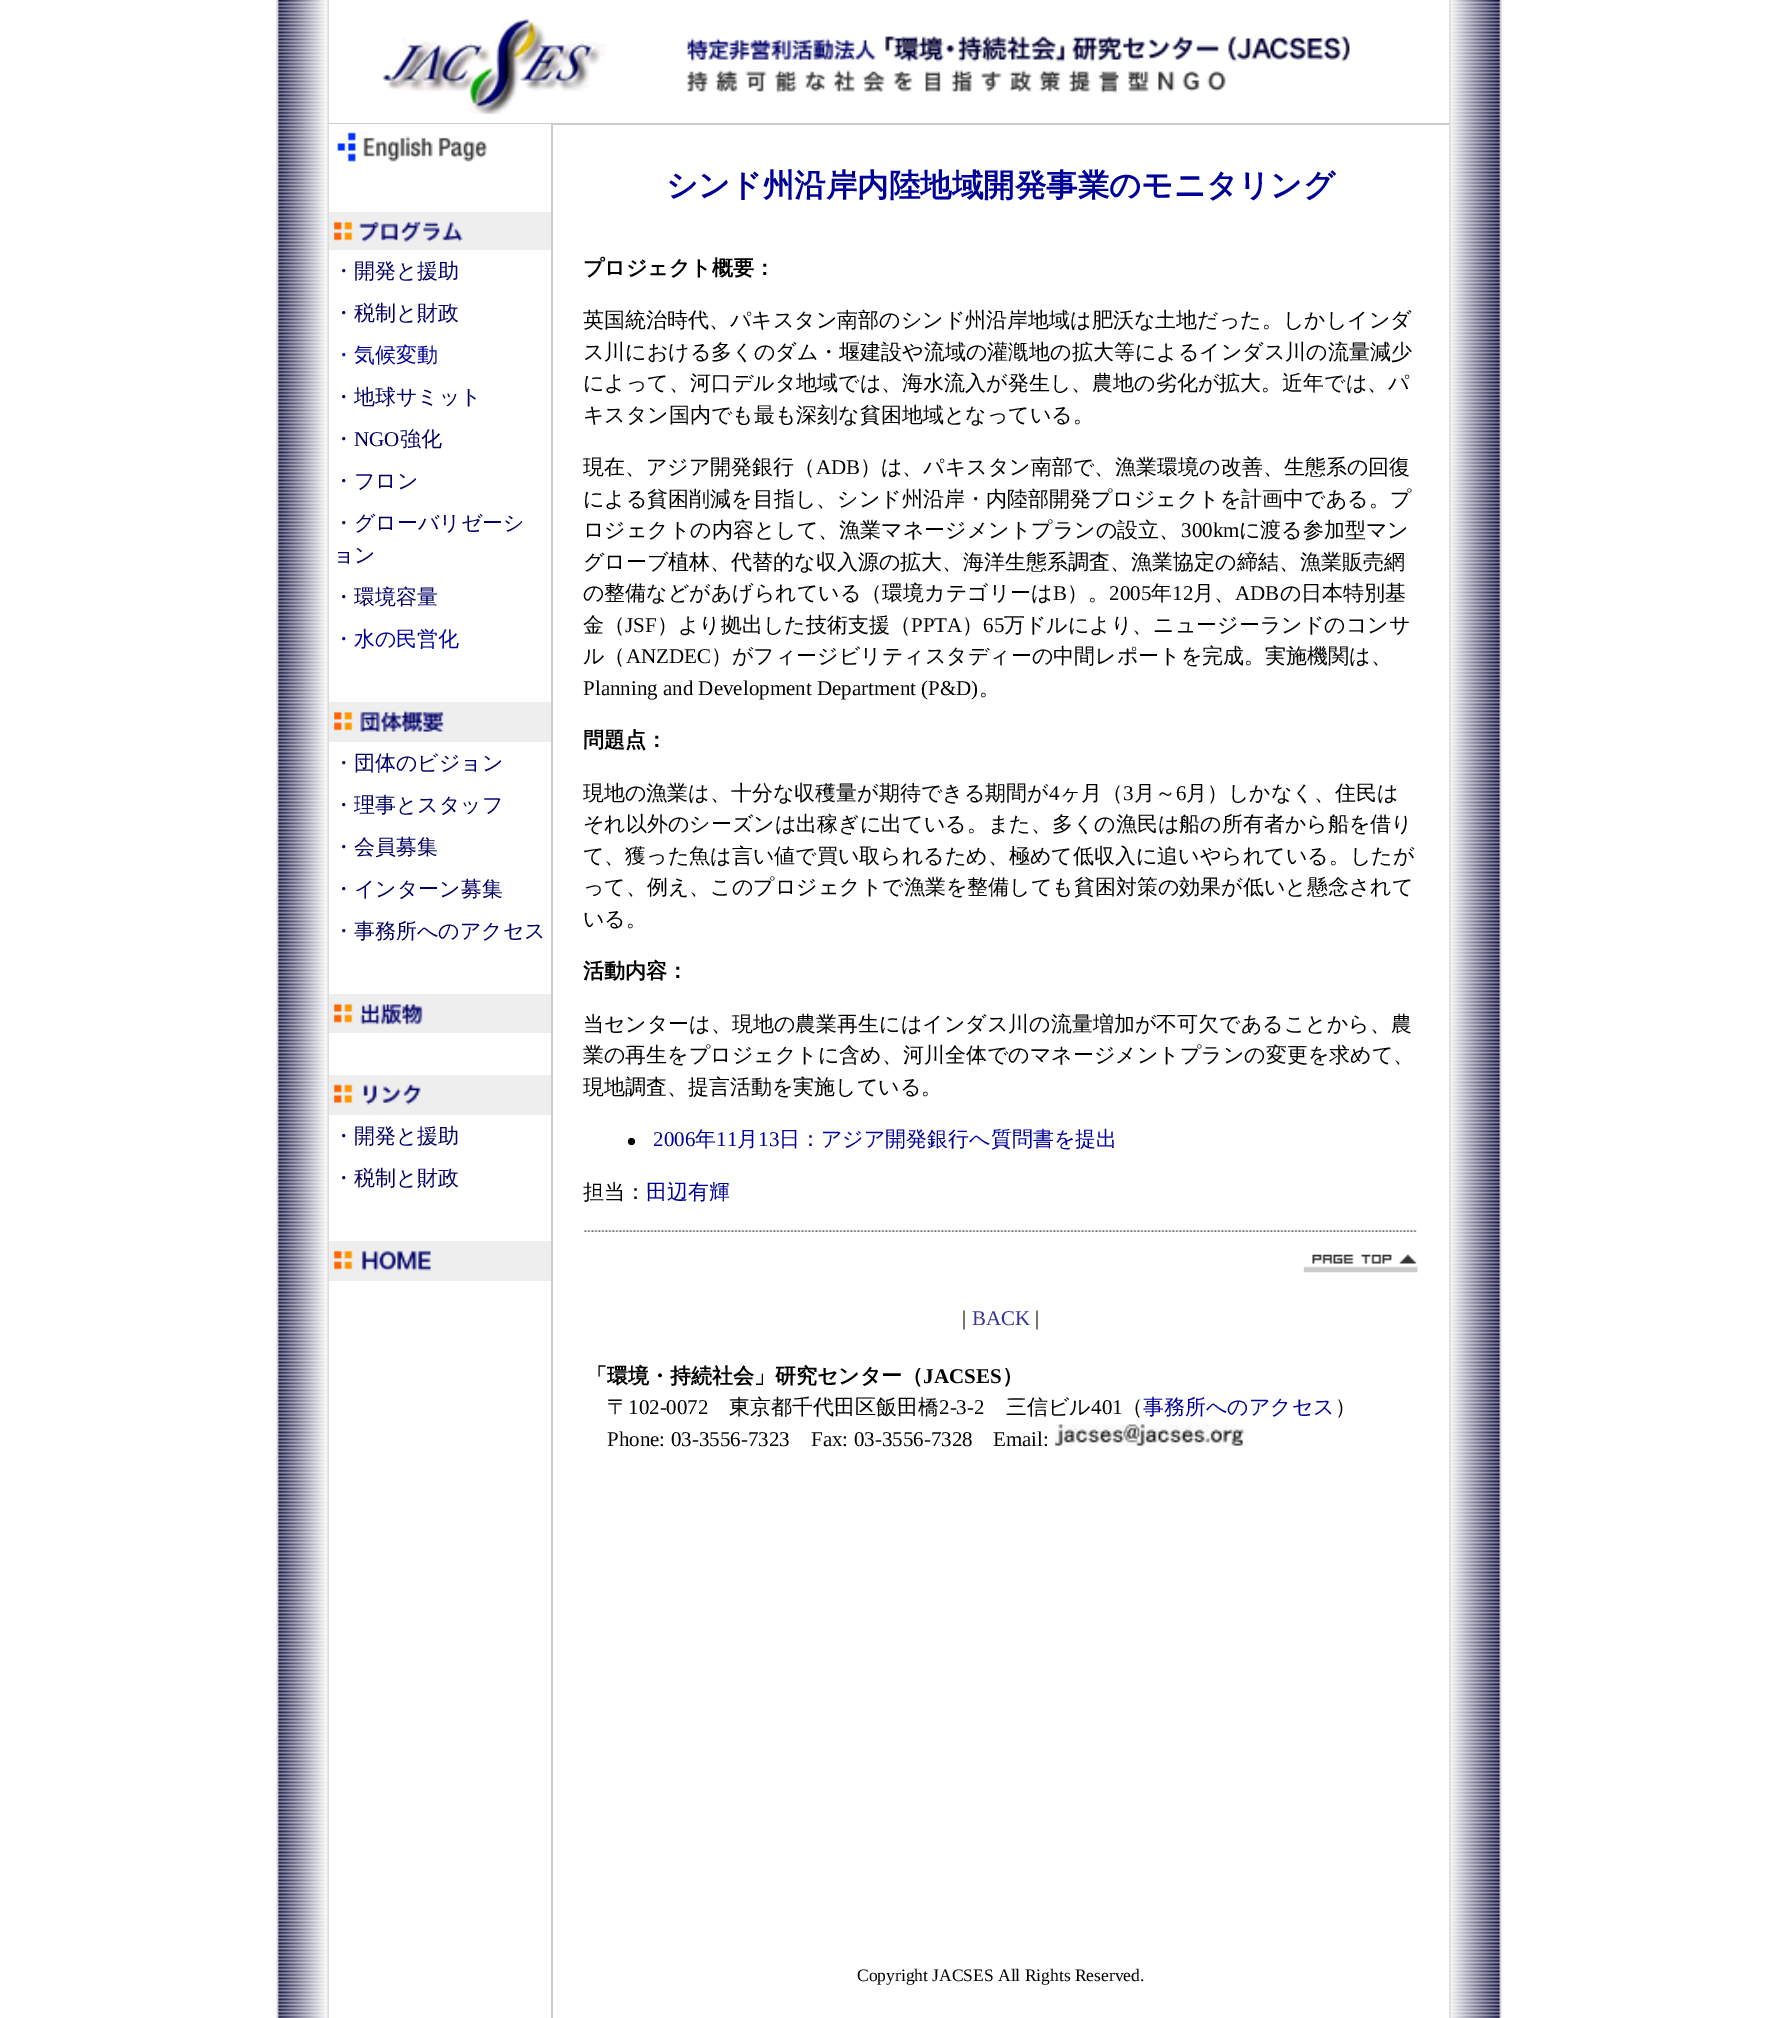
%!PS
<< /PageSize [1775 2018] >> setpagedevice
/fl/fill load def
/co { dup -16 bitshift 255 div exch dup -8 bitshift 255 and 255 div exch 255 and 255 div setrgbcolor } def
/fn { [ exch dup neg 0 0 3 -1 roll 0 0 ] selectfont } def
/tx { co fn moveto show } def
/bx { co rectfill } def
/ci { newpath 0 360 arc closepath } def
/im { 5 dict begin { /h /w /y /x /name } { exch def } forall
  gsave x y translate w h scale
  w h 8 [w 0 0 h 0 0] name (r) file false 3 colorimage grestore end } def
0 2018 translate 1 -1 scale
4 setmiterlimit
0 0 1775 2018 16#FFFFFF bx
(media/1.raw) 276 0 53 2018 im
(media/2.raw) 276 0 45 700 im
(media/3.raw) 372 9 978 105 im
329 123 1120 2 16#CCCCCC bx
329 124 222 1 16#FFFFFF bx
(media/4.raw) 337 132 150 30 im
329 212 222 38 16#EEEEEE bx
(media/5.raw) 334 220 129 22 im
329 702 222 40 16#EEEEEE bx
(media/6.raw) 334 710 110 23 im
329 994 222 39 16#EEEEEE bx
(media/7.raw) 334 1003 89 22 im
329 1075 222 40 16#EEEEEE bx
(media/8.raw) 334 1084 87 21 im
329 1241 222 40 16#EEEEEE bx
(media/9.raw) 334 1250 97 21 im
551 124 2 1894 16#CCCCCC bx
16#000000 co
631.5 1141.5 3.5 ci fl
(media/10.raw) 584 1230 833 2 im
(media/11.raw) 1303 1254 115 19 im
(media/12.raw) 1055 1424 190 22 im
(media/13.raw) 1449 0 53 2018 im
(media/14.raw) 1457 0 45 700 im
(・開発と援助) 333 278 /WenQuanYiZenHei-Medium 21 16#000066 tx
(・税制と財政) 333 320 /WenQuanYiZenHei-Medium 21 16#000066 tx
(・気候変動) 333 362 /WenQuanYiZenHei-Medium 21 16#000099 tx
(・地球サミット) 333 404 /WenQuanYiZenHei-Medium 21 16#000066 tx
(・) 333 446 /WenQuanYiZenHei-Medium 21 16#000066 tx
(NGO) 354 446 /LiberationSerif-Regular 21 16#000066 tx
(強化) 400 446 /WenQuanYiZenHei-Medium 21 16#000066 tx
(・フロン) 333 488 /WenQuanYiZenHei-Medium 21 16#000066 tx
(・グローバリゼーシ) 333 530 /WenQuanYiZenHei-Medium 21 16#000066 tx
(ョン) 333 562 /WenQuanYiZenHei-Medium 21 16#000066 tx
(・環境容量) 333 604 /WenQuanYiZenHei-Medium 21 16#000066 tx
(・水の民営化) 333 646 /WenQuanYiZenHei-Medium 21 16#000099 tx
(・団体のビジョン) 333 770 /WenQuanYiZenHei-Medium 21 16#000066 tx
(・理事とスタッフ) 333 812 /WenQuanYiZenHei-Medium 21 16#000066 tx
(・会員募集) 333 854 /WenQuanYiZenHei-Medium 21 16#000066 tx
(・インターン募集) 333 896 /WenQuanYiZenHei-Medium 21 16#000066 tx
(・事務所へのアクセス) 333 938 /WenQuanYiZenHei-Medium 21 16#000066 tx
(・開発と援助) 333 1143 /WenQuanYiZenHei-Medium 21 16#000066 tx
(・税制と財政) 333 1185 /WenQuanYiZenHei-Medium 21 16#000066 tx
(シンド州沿岸内陸地域開発事業のモニタリング) 666 196 /WenQuanYiZenHei-Bold 31.5 16#000099 tx
(プロジェクト概要：) 583 275 /WenQuanYiZenHei-Bold 21 16#000000 tx
(英国統治時代、パキスタン南部のシンド州沿岸地域は肥沃な土地だった。しかしインダ) 583 327 /WenQuanYiZenHei-Medium 21 16#000000 tx
(ス川における多くのダム・堰建設や流域の灌漑地の拡大等によるインダス川の流量減少) 583 359 /WenQuanYiZenHei-Medium 21 16#000000 tx
(によって、河口デルタ地域では、海水流入が発生し、農地の劣化が拡大。近年では、パ) 583 390 /WenQuanYiZenHei-Medium 21 16#000000 tx
(キスタン国内でも最も深刻な貧困地域となっている。) 583 422 /WenQuanYiZenHei-Medium 21 16#000000 tx
(現在、アジア開発銀行（) 583 474 /WenQuanYiZenHei-Medium 21 16#000000 tx
(ADB) 816 474 /LiberationSerif-Regular 21 16#000000 tx
(）は、パキスタン南部で、漁業環境の改善、生態系の回復) 860 474 /WenQuanYiZenHei-Medium 21 16#000000 tx
(による貧困削減を目指し、シンド州沿岸・内陸部開発プロジェクトを計画中である。プ) 583 506 /WenQuanYiZenHei-Medium 21 16#000000 tx
(ロジェクトの内容として、漁業マネージメントプランの設立、) 583 537 /WenQuanYiZenHei-Medium 21 16#000000 tx
(300km) 1181 537 /LiberationSerif-Regular 21 16#000000 tx
(に渡る参加型マン) 1239 537 /WenQuanYiZenHei-Medium 21 16#000000 tx
(グローブ植林、代替的な収入源の拡大、海洋生態系調査、漁業協定の締結、漁業販売網) 583 569 /WenQuanYiZenHei-Medium 21 16#000000 tx
(の整備などがあげられている（環境カテゴリーは) 583 600 /WenQuanYiZenHei-Medium 21 16#000000 tx
(B) 1053 600 /LiberationSerif-Regular 21 16#000000 tx
(）。) 1067 600 /WenQuanYiZenHei-Medium 21 16#000000 tx
(2005) 1109 600 /LiberationSerif-Regular 21 16#000000 tx
(年) 1151 600 /WenQuanYiZenHei-Medium 21 16#000000 tx
(12) 1172 600 /LiberationSerif-Regular 21 16#000000 tx
(月、) 1193 600 /WenQuanYiZenHei-Medium 21 16#000000 tx
(ADB) 1235 600 /LiberationSerif-Regular 21 16#000000 tx
(の日本特別基) 1280 600 /WenQuanYiZenHei-Medium 21 16#000000 tx
(金（) 583 632 /WenQuanYiZenHei-Medium 21 16#000000 tx
(JSF) 625 632 /LiberationSerif-Regular 21 16#000000 tx
(）より拠出した技術支援（) 657 632 /WenQuanYiZenHei-Medium 21 16#000000 tx
(PPTA) 911 632 /LiberationSerif-Regular 21 16#000000 tx
(）) 962 632 /WenQuanYiZenHei-Medium 21 16#000000 tx
(65) 983 632 /LiberationSerif-Regular 21 16#000000 tx
(万ドルにより、ニュージーランドのコンサ) 1004 632 /WenQuanYiZenHei-Medium 21 16#000000 tx
(ル（) 583 663 /WenQuanYiZenHei-Medium 21 16#000000 tx
(ANZDEC) 626 663 /LiberationSerif-Regular 21 16#000000 tx
(）がフィージビリティスタディーの中間レポートを完成。実施機関は、) 711 663 /WenQuanYiZenHei-Medium 21 16#000000 tx
(Planning and Development Department \(P&D\)) 583 695 /LiberationSerif-Regular 21 16#000000 tx
(。) 979 695 /WenQuanYiZenHei-Medium 21 16#000000 tx
(問題点：) 583 747 /WenQuanYiZenHei-Bold 21 16#000000 tx
(現地の漁業は、十分な収穫量が期待できる期間が) 583 800 /WenQuanYiZenHei-Medium 21 16#000000 tx
(4) 1049 800 /LiberationSerif-Regular 21 16#000000 tx
(ヶ月（) 1060 800 /WenQuanYiZenHei-Medium 21 16#000000 tx
(3) 1123 800 /LiberationSerif-Regular 21 16#000000 tx
(月～) 1134 800 /WenQuanYiZenHei-Medium 21 16#000000 tx
(6) 1176 800 /LiberationSerif-Regular 21 16#000000 tx
(月）しかなく、住民は) 1186 800 /WenQuanYiZenHei-Medium 21 16#000000 tx
(それ以外のシーズンは出稼ぎに出ている。また、多くの漁民は船の所有者から船を借り) 583 831 /WenQuanYiZenHei-Medium 21 16#000000 tx
(て、獲った魚は言い値で買い取られるため、極めて低収入に追いやられている。したが) 583 863 /WenQuanYiZenHei-Medium 21 16#000000 tx
(って、例え、このプロジェクトで漁業を整備しても貧困対策の効果が低いと懸念されて) 583 894 /WenQuanYiZenHei-Medium 21 16#000000 tx
(いる。) 583 926 /WenQuanYiZenHei-Medium 21 16#000000 tx
(活動内容：) 583 978 /WenQuanYiZenHei-Bold 21 16#000000 tx
(当センターは、現地の農業再生にはインダス川の流量増加が不可欠であることから、農) 583 1031 /WenQuanYiZenHei-Medium 21 16#000000 tx
(業の再生をプロジェクトに含め、河川全体でのマネージメントプランの変更を求めて、) 583 1062 /WenQuanYiZenHei-Medium 21 16#000000 tx
(現地調査、提言活動を実施している。) 583 1094 /WenQuanYiZenHei-Medium 21 16#000000 tx
(2006) 653 1146 /LiberationSerif-Regular 21 16#000099 tx
(年) 695 1146 /WenQuanYiZenHei-Medium 21 16#000099 tx
(11) 716 1146 /LiberationSerif-Regular 21 16#000099 tx
(月) 737 1146 /WenQuanYiZenHei-Medium 21 16#000099 tx
(13) 758 1146 /LiberationSerif-Regular 21 16#000099 tx
(日：アジア開発銀行へ質問書を提出) 779 1146 /WenQuanYiZenHei-Medium 21 16#000099 tx
(担当：) 583 1199 /WenQuanYiZenHei-Medium 21 16#000000 tx
(田辺有輝) 646 1199 /WenQuanYiZenHei-Medium 21 16#000099 tx
(|) 962 1325 /LiberationSerif-Regular 21 16#000000 tx
(BACK) 972 1325 /LiberationSerif-Regular 21 16#333399 tx
(|) 1035 1325 /LiberationSerif-Regular 21 16#000000 tx
(「環境・持続社会」研究センター（) 586 1383 /WenQuanYiZenHei-Bold 21 16#000000 tx
(JACSES) 923 1383 /LiberationSerif-Bold 21 16#000000 tx
(）) 1002 1383 /WenQuanYiZenHei-Bold 21 16#000000 tx
(〒) 607 1414 /WenQuanYiZenHei-Medium 21 16#000000 tx
(102-0072) 628 1414 /LiberationSerif-Regular 21 16#000000 tx
(東京都千代田区飯田橋) 729 1414 /WenQuanYiZenHei-Medium 21 16#000000 tx
(2-3-2) 939 1414 /LiberationSerif-Regular 21 16#000000 tx
(三信ビル) 1006 1414 /WenQuanYiZenHei-Medium 21 16#000000 tx
(401) 1091 1414 /LiberationSerif-Regular 21 16#000000 tx
(（) 1122 1414 /WenQuanYiZenHei-Medium 21 16#000000 tx
(事務所へのアクセス) 1143 1414 /WenQuanYiZenHei-Medium 21 16#000099 tx
(）) 1335 1414 /WenQuanYiZenHei-Medium 21 16#000000 tx
(Phone: 03-3556-7323) 607 1446 /LiberationSerif-Regular 21 16#000000 tx
(Fax: 03-3556-7328) 811 1446 /LiberationSerif-Regular 21 16#000000 tx
(Email:) 993 1446 /LiberationSerif-Regular 21 16#000000 tx
(Copyright JACSES All Rights Reserved.) 857 1981 /LiberationSerif-Regular 17.5 16#000000 tx
showpage
